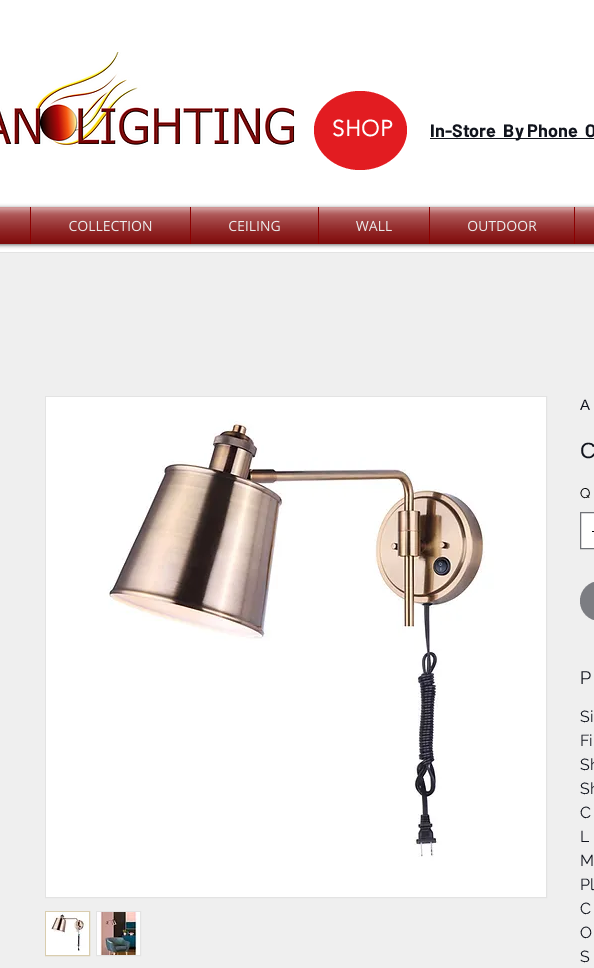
%!PS
<< /PageSize [594 968] /PageUsesTransparency true >> setpagedevice
/mt/moveto load def
/li/lineto load def
/ct/curveto load def
/cp/closepath load def
/fl/fill load def
/st/stroke load def
/gs/gsave load def
/gr/grestore load def
/co { dup -16 bitshift 255 div exch dup -8 bitshift 255 and 255 div exch 255 and 255 div setrgbcolor } def
/fn { [ exch dup neg 0 0 3 -1 roll 0 0 ] selectfont } def
/tx { co fn moveto show } def
/bx { co rectfill } def
/al { dup .setfillconstantalpha .setstrokeconstantalpha } def
/rr { 5 dict begin { /r /h /w /y /x } { exch def } forall
  x r add y moveto x w add y 2 copy h add r arct x w add y h add x 1 index r arct
  x y h add x y r arct x y 2 copy exch w add exch r arct closepath end } def
/sh { 12 dict begin { /a /b /q /h /w /y /x } { exch def } forall gsave /was 0 def
  9 -2 -9 { dup b mul 4 div /e exch def 1 sub .425 mul 2.718 exch exp 1 add a .99 .min exch div /now exch def
    1 1 now sub 1 was sub div sub al /was now def
    w h .min e 2 mul add 0 gt { x e sub y e sub w e 2 mul add h e 2 mul add
      q e add b .6 mul add w h .min 2 div e add .min 0 .max rr fill } if } for grestore end } def
/im { 5 dict begin { /h /w /y /x /name } { exch def } forall
  gsave x y translate w h scale
  w h 8 [w 0 0 h 0 0] name (r) file false 3 colorimage grestore end } def
0 .pushpdf14devicefilter
0 968 translate 1 -1 scale
4 setmiterlimit
0 0 594 968 16#FFFFFF bx
(media/1.raw) 0 52 295 95 im
16#E21C21 co
407 130 mt 407 152 386 170 360 170 ct 335 170 314 152 314 130 ct 314 109 335 91 360 91 ct 386 91 407 109 407 130 ct cp fl
430 138 164 1 16#11141D bx
16#000000 co
-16 208 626 37 10 2 .6 sh
0 207 594 37 16#8B0000 bx
(media/2.raw) 0 207 30 37 im
(media/3.raw) 0 210 30 34 im
(media/12.raw) 575 207 19 37 im
(media/13.raw) 575 210 19 34 im
0 252 594 1 16#E3E3E3 bx
0 253 594 715 16#EFEFEF bx
16#E3E3E3 co
45.5 396.5 501 501 rectstroke
(media/14.raw) 46 397 500 500 im
16#D9CDAF co
45.5 911.5 44 44 rectstroke
(media/15.raw) 46 912 43 43 im
16#E3E3E3 co
96.5 911.5 44 44 rectstroke
(media/16.raw) 97 912 43 43 im
16#FFFFFF co
580.5 512.5 mt 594.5 512.5 li 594.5 548.5 li 580.5 548.5 li cp gs fl gr
16#707277 co
st
592 531 2 1 16#000000 bx
16#7C7D82 co
580 581 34 40 20 rr fl
/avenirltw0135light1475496-Bold 22 fn
16#FFFFFE co
332 136 mt .5 0 (SHOP) ashow
(In-Store  By Phone  O) 430 137 /Barlow-Bold 18 16#11141D tx
(COLLECTION) 69 231 /OpenSans-Regular 14 16#FFFFFE tx
(media/4.raw) 31 207 159 37 im
(media/5.raw) 31 210 159 34 im
(CEILING) 228 231 /OpenSans-Regular 14 16#FFFFFE tx
(media/6.raw) 191 207 127 37 im
(media/7.raw) 191 210 127 34 im
(WALL) 356 231 /OpenSans-Regular 14 16#FFFFFE tx
(media/8.raw) 319 207 110 37 im
(media/9.raw) 319 210 110 34 im
(OUTDOOR) 467 231 /OpenSans-Regular 14 16#FFFFFE tx
(media/10.raw) 430 207 144 37 im
(media/11.raw) 430 210 144 34 im
(A) 580 410 /LiberationSans-Regular 15 16#11141D tx
(C) 580 458 /LiberationSans-Regular 22 16#11141D tx
(Q) 580 498 /Raleway-Regular 14 16#000000 tx
(P) 580 684 /Raleway-Regular 18 16#11141D tx
(Si) 580 722 /Raleway-Regular 16 16#11141D tx
(Fi) 580 746 /Raleway-Regular 16 16#11141D tx
(Sh) 580 770 /Raleway-Regular 16 16#11141D tx
(Sh) 580 794 /Raleway-Regular 16 16#11141D tx
(C) 580 818 /Raleway-Regular 16 16#11141D tx
(L) 580 842 /Raleway-Regular 16 16#11141D tx
(M) 580 866 /Raleway-Regular 16 16#11141D tx
(Pl) 580 890 /Raleway-Regular 16 16#11141D tx
(C) 580 914 /Raleway-Regular 16 16#11141D tx
(O) 580 938 /Raleway-Regular 16 16#11141D tx
(S) 580 962 /Raleway-Regular 16 16#11141D tx
.poppdf14devicefilter showpage
